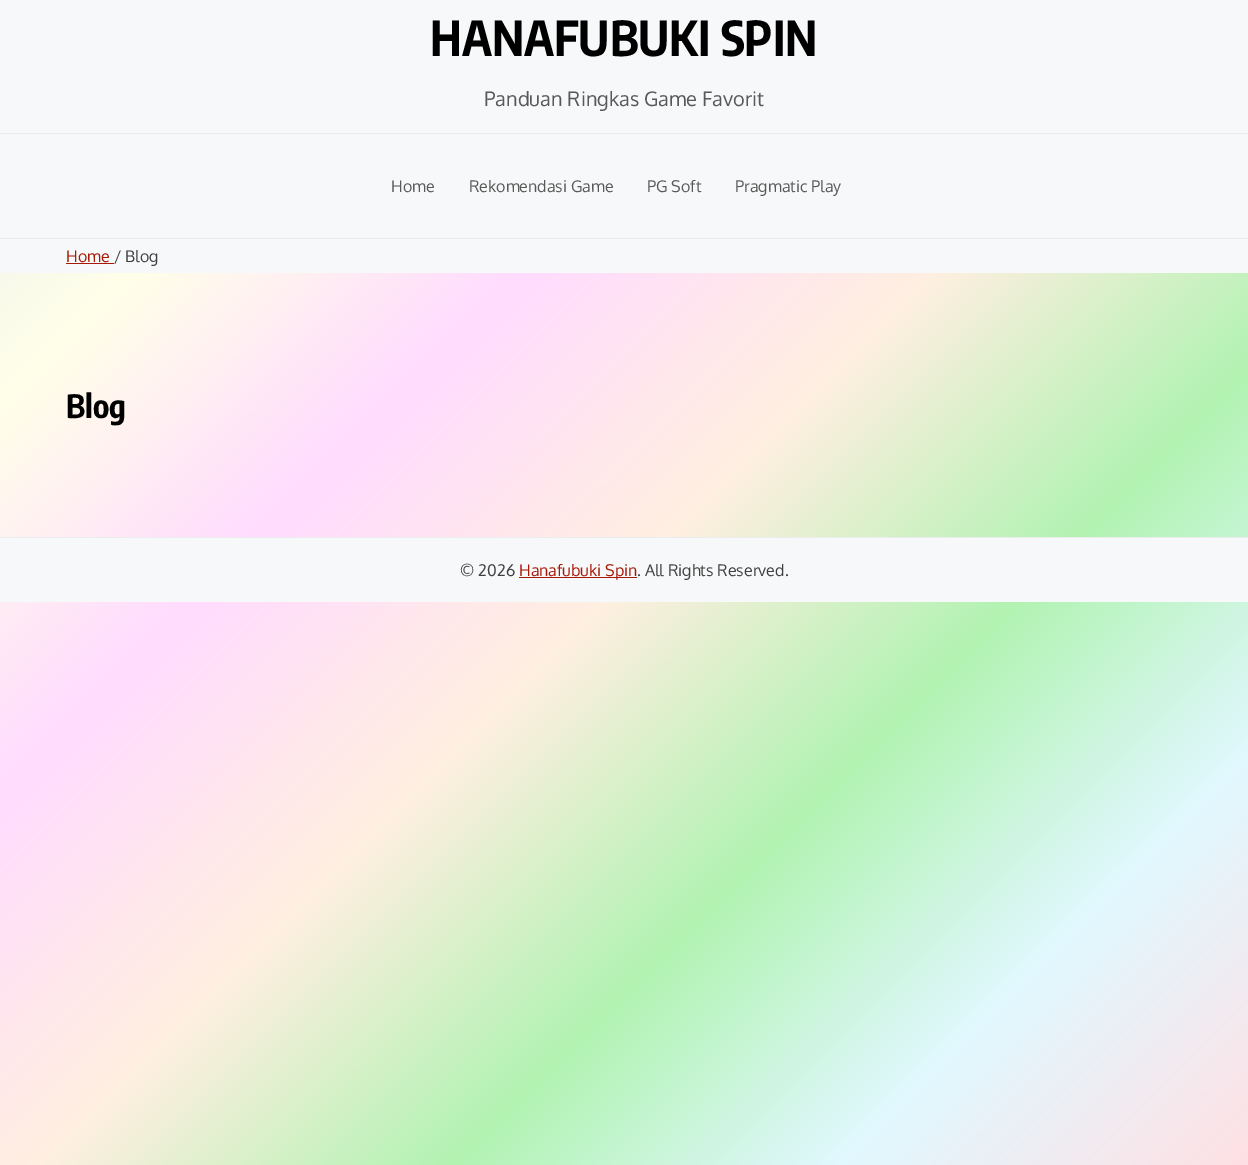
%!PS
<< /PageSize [1248 1165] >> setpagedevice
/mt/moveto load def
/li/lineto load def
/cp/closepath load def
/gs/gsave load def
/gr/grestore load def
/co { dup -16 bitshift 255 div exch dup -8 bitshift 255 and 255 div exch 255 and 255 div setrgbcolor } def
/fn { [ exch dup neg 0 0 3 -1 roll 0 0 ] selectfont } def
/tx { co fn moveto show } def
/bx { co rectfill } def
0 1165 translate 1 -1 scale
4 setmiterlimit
0 0 1248 1165 16#FFFFFF bx
gs 0 273 mt 1248 273 li 1248 1165 li 0 1165 li cp clip newpath
<< /ShadingType 2 /ColorSpace /DeviceRGB /Coords [1227 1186 21 -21] /Extend [true true] /Function << /FunctionType 3 /Domain [0 1] /Functions [<< /FunctionType 2 /Domain [0 1] /C0 [1 .878 .894] /C1 [.882 .973 1] /N 1 >> << /FunctionType 2 /Domain [0 1] /C0 [.882 .973 1] /C1 [.698 .953 .698] /N 1 >> << /FunctionType 2 /Domain [0 1] /C0 [.698 .953 .698] /C1 [1 .937 .878] /N 1 >> << /FunctionType 2 /Domain [0 1] /C0 [1 .937 .878] /C1 [1 .859 1] /N 1 >> << /FunctionType 2 /Domain [0 1] /C0 [1 .859 1] /C1 [1 1 .914] /N 1 >> << /FunctionType 2 /Domain [0 1] /C0 [1 1 .914] /C1 [.933 .933 .953] /N 1 >>] /Bounds [.17 .33 .5 .67 .83] /Encode [0 1 0 1 0 1 0 1 0 1 0 1] >> >> shfill gr
0 0 1248 238 16#F7F8F9 bx
0 133 1248 1 16#EAECEE bx
0 239 1248 34 16#F7F8F9 bx
0 238 1248 1 16#EAECEE bx
66 263 48 1 16#A61A07 bx
0 538 1248 64 16#F7F8F9 bx
0 537 1248 1 16#EAECEE bx
519 577 118 1 16#A61A07 bx
(HANAFUBUKI SPIN) 430 56 /EncodeSansCondensed-Bold 48 16#000000 tx
(Panduan Ringkas Game Favorit) 484 106 /Oxygen-Regular 20 16#595959 tx
(Home) 391 192 /Oxygen-Regular 16 16#595959 tx
(Rekomendasi Game) 469 192 /Oxygen-Regular 16 16#595959 tx
(PG Soft) 647 192 /Oxygen-Regular 16 16#595959 tx
(Pragmatic Play) 735 192 /Oxygen-Regular 16 16#595959 tx
(Home) 66 262 /Oxygen-Regular 16 16#A61A07 tx
(/ Blog) 114 262 /Oxygen-Regular 16 16#404040 tx
(Blog) 66 418 /EncodeSansCondensed-Bold 32 16#000000 tx
(© 2026) 460 576 /Oxygen-Regular 16 16#404040 tx
(Hanafubuki Spin) 519 576 /Oxygen-Regular 16 16#A61A07 tx
(. All Rights Reserved.) 637 576 /Oxygen-Regular 16 16#404040 tx
showpage
